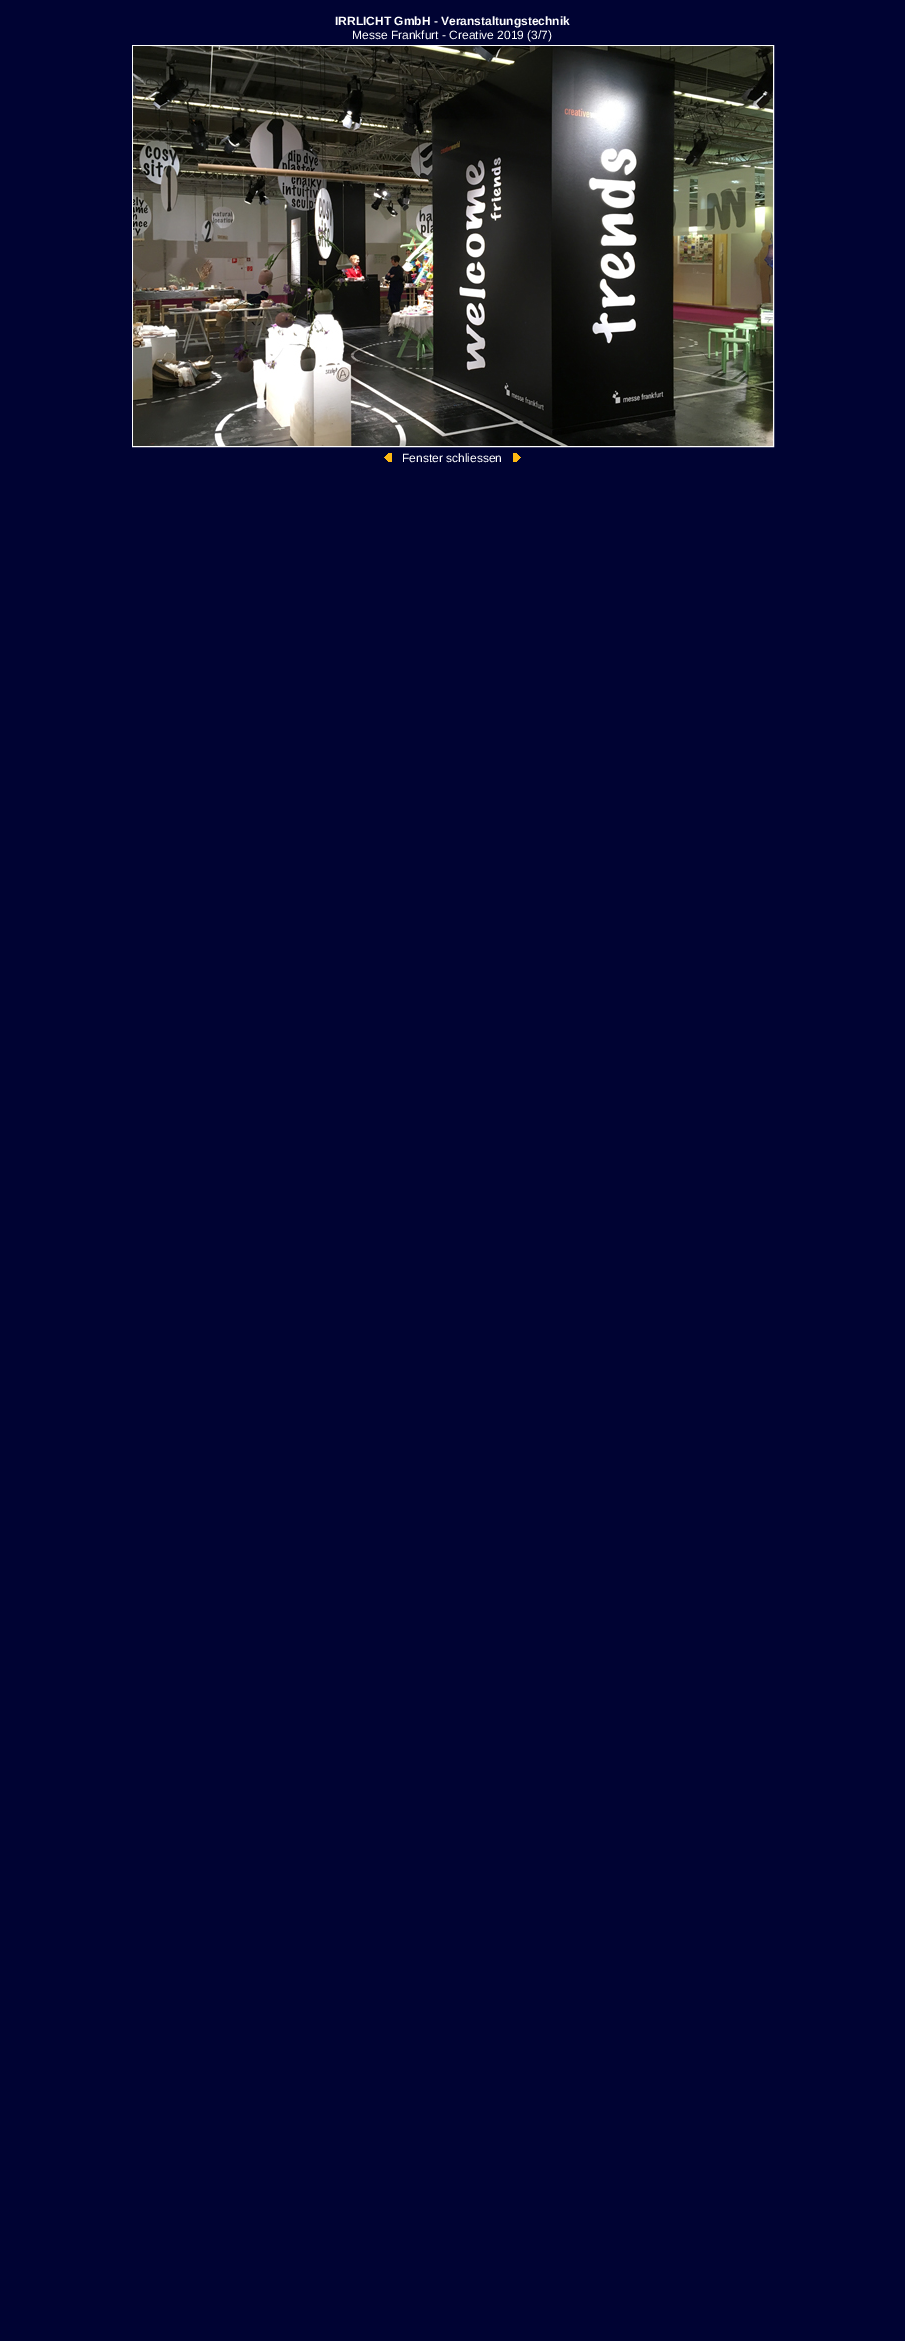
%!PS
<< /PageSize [905 2341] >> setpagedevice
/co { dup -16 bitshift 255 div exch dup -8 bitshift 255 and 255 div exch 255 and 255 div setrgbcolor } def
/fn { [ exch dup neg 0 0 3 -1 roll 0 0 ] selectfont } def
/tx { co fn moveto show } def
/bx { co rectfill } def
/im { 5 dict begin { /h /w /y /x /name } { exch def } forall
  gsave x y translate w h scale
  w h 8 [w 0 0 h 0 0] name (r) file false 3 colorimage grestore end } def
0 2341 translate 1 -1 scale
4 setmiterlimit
0 0 905 2341 16#000333 bx
16#FFFFFF co
132.5 45.5 641 401 rectstroke
(media/1.raw) 133 46 640 400 im
(media/2.raw) 384 453 8 9 im
(media/3.raw) 513 453 8 9 im
(IRRLICHT GmbH - Veranstaltungstechnik) 335 25 /LiberationSans-Bold 12 16#FFFFFF tx
(Messe Frankfurt - Creative 2019 \(3/7\)) 352 39 /LiberationSans-Regular 12 16#FFFFFF tx
(Fenster schliessen) 402 462 /LiberationSans-Regular 12 16#FFFFFF tx
showpage
